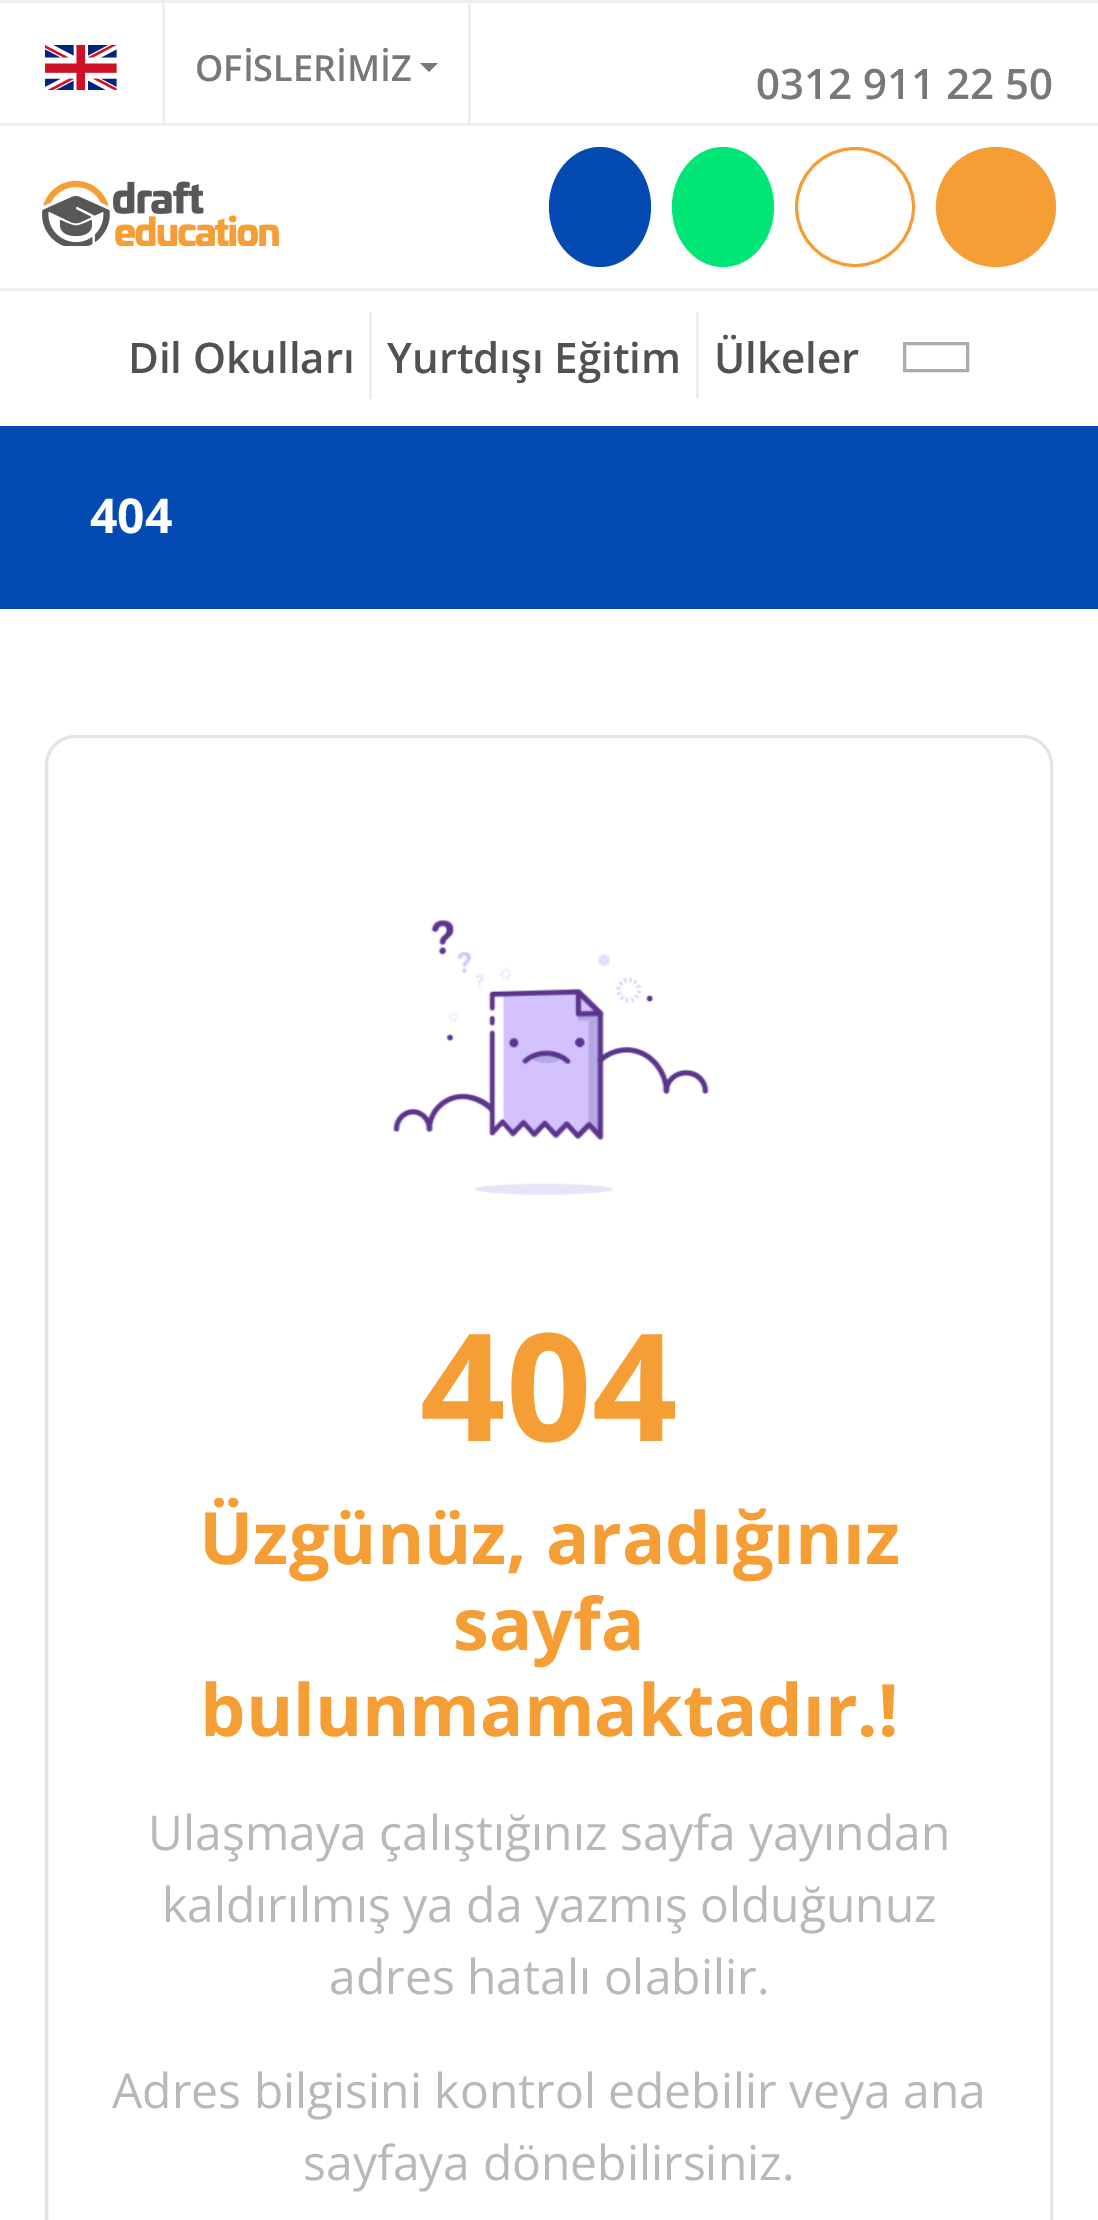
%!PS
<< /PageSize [1098 2220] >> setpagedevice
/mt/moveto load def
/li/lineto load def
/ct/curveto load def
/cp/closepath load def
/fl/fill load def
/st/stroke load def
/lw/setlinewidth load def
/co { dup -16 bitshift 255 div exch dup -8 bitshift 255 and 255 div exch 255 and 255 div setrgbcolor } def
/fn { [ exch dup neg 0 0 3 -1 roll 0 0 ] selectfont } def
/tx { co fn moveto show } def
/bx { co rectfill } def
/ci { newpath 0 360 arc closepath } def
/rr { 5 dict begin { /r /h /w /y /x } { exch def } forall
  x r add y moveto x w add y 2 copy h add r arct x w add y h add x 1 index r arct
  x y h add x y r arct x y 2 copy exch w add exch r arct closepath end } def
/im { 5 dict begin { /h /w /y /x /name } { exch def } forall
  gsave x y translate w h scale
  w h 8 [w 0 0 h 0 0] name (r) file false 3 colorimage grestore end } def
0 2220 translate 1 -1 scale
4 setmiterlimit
0 0 1098 2220 16#FFFFFF bx
0 0 1098 3 16#EEEEEE bx
0 123 1098 3 16#EEEEEE bx
162 3 3 120 16#EEEEEE bx
(media/1.raw) 45 45 72 45 im
468 3 3 120 16#EEEEEE bx
16#787878 co
420 63 mt 438 63 li 429 72 li cp fl
(media/2.raw) 42 180 237 66 im
16#034AB2 co
600 147 mt 628 147 651 174 651 207 ct 651 240 628 267 600 267 ct 572 267 549 240 549 207 ct 549 174 572 147 600 147 ct cp fl
16#00E676 co
723 147 mt 751 147 774 174 774 207 ct 774 240 751 267 723 267 ct 695 267 672 240 672 207 ct 672 174 695 147 723 147 ct cp fl
16#F59E36 co
3 lw
855 207 58.5 ci st
996 207 60 ci fl
0 288 1098 3 16#EEEEEE bx
369 312 3 87 16#EEEEEE bx
696 312 3 87 16#EEEEEE bx
16#ABABAF co
904.5 343.5 63 27 rectstroke
0 426 1098 183 16#034AB2 bx
16#E4E4E4 co
46.5 736.5 1005 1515 28.5 rr st
(media/3.raw) 392 919 317 276 im
(OFİSLERİMİZ) 195 81 /OpenSans-SemiBold 36 16#787878 tx
(0312 911 22 50) 756 99 /OpenSans-SemiBold 42 16#787878 tx
(Dil Okulları) 128 373 /OpenSans-SemiBold 42 16#515151 tx
(Yurtdışı Eğitim) 387 373 /OpenSans-SemiBold 42 16#515151 tx
(Ülkeler) 714 373 /OpenSans-SemiBold 42 16#515151 tx
(404) 90 533 /OpenSans-Bold 48 16#FFFFFF tx
(404) 420 1441 /OpenSans-Bold 150 16#F59E36 tx
(Üzgünüz, aradığınız) 199 1564 /OpenSans-Bold 72 16#F59E36 tx
(sayfa) 453 1650 /OpenSans-Bold 72 16#F59E36 tx
(bulunmamaktadır.!) 200 1736 /OpenSans-Bold 72 16#F59E36 tx
(Ulaşmaya çalıştığınız sayfa yayından) 148 1850 /OpenSans-Regular 48 16#B8B8B8 tx
(kaldırılmış ya da yazmış olduğunuz) 162 1922 /OpenSans-Regular 48 16#B8B8B8 tx
(adres hatalı olabilir.) 329 1994 /OpenSans-Regular 48 16#B8B8B8 tx
(Adres bilgisini kontrol edebilir veya ana) 112 2108 /OpenSans-Regular 48 16#B8B8B8 tx
(sayfaya dönebilirsiniz.) 303 2180 /OpenSans-Regular 48 16#B8B8B8 tx
showpage
